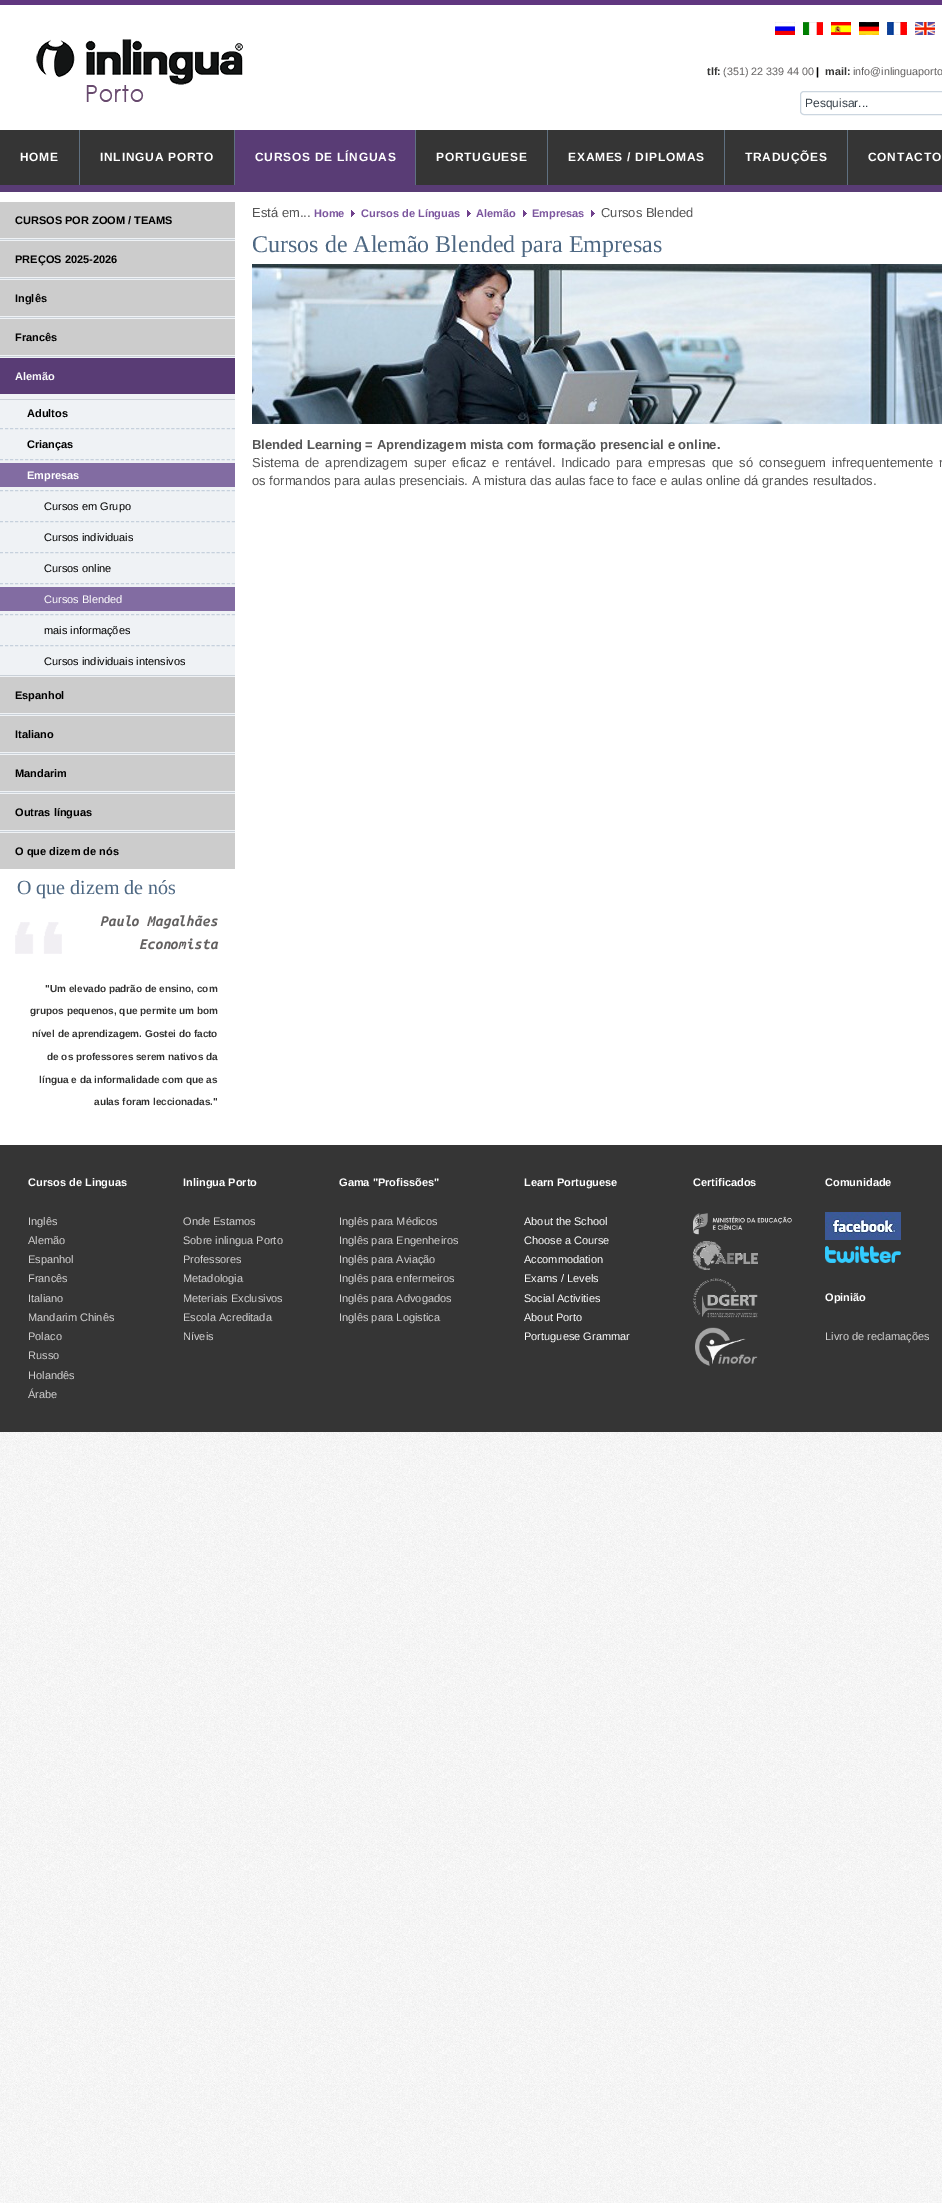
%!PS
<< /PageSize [942 2203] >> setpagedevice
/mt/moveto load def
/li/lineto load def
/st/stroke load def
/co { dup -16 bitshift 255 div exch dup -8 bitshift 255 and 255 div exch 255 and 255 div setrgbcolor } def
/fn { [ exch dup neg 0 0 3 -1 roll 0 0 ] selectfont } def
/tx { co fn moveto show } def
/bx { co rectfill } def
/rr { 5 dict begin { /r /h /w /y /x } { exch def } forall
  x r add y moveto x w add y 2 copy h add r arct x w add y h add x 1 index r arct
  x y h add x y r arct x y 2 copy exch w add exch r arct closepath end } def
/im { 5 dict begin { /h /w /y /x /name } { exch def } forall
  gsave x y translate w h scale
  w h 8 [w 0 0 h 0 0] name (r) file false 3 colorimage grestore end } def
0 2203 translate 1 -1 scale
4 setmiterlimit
0 0 942 2203 16#FFFFFF bx
(media/1.raw) 0 1432 942 771 im
(media/2.raw) 0 5 942 125 im
0 0 942 5 16#613780 bx
(media/3.raw) 775 22 20 13 im
(media/4.raw) 803 22 20 13 im
(media/5.raw) 831 22 20 13 im
(media/6.raw) 859 22 20 13 im
(media/7.raw) 887 22 20 13 im
(media/8.raw) 915 22 20 13 im
16#CCD6E0 co
800.5 91.5 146 23 3.5 rr st
0 130 942 55 16#353535 bx
0 185 942 7 16#593C75 bx
79 130 1 55 16#5F7081 bx
234 130 1 55 16#5F7081 bx
235 130 180 55 16#593C75 bx
415 130 1 55 16#5F7081 bx
547 130 1 55 16#5F7081 bx
724 130 1 55 16#5F7081 bx
847 130 1 55 16#5F7081 bx
0 238 235 595 16#EFF2F5 bx
0 202 235 36 16#CCCCCC bx
0 239 235 1 16#CAD1D8 bx
0 241 235 36 16#CCCCCC bx
0 278 235 1 16#CAD1D8 bx
0 280 235 36 16#CCCCCC bx
0 317 235 1 16#CAD1D8 bx
0 319 235 36 16#CCCCCC bx
0 356 235 1 16#CAD1D8 bx
0 358 235 36 16#593C75 bx
0 399 235 1 16#CAD1D8 bx
16#C6D1DD co
[3 2.04] 0 setdash
0 428.5 mt 235 428.5 li st
0 459.5 mt 235 459.5 li st
0 463 235 24 16#826CA2 bx
16#C6D1DD co
0 490.5 mt 235 490.5 li st
0 521.5 mt 235 521.5 li st
0 552.5 mt 235 552.5 li st
0 583.5 mt 235 583.5 li st
0 587 235 24 16#826CA2 bx
16#C6D1DD co
0 614.5 mt 235 614.5 li st
0 645.5 mt 235 645.5 li st
0 675 235 1 16#CAD1D8 bx
0 677 235 36 16#CCCCCC bx
0 714 235 1 16#CAD1D8 bx
0 716 235 36 16#CCCCCC bx
0 753 235 1 16#CAD1D8 bx
0 755 235 36 16#CCCCCC bx
0 792 235 1 16#CAD1D8 bx
0 794 235 36 16#CCCCCC bx
0 831 235 1 16#CAD1D8 bx
0 833 235 36 16#CCCCCC bx
(media/9.raw) 15 922 47 32 im
(media/10.raw) 351 210 4 7 im
(media/10.raw) 467 210 4 7 im
(media/10.raw) 523 210 4 7 im
(media/10.raw) 591 210 4 7 im
(media/11.raw) 252 264 690 160 im
0 1145 942 287 16#353535 bx
(media/12.raw) 693 1213 99 22 im
(media/13.raw) 693 1241 65 29 im
(media/14.raw) 693 1278 65 40 im
(media/15.raw) 695 1327 63 39 im
(media/16.raw) 825 1212 76 28 im
(media/17.raw) 825 1246 76 17 im
(tlf:) 707 75 /LiberationSans-Bold 10.75 16#353534 tx
(\(351\) 22 339 44 00) 723 75 /LiberationSans-Regular 10.75 16#646262 tx
(|) 816 75 /LiberationSans-Bold 10.75 16#000000 tx
(mail:) 825 75 /LiberationSans-Bold 10.75 16#353534 tx
(info@inlinguaporto) 853 75 /LiberationSans-Regular 10.75 16#646262 tx
(Pesquisar...) 805 107 /LiberationSans-Regular 12 16#364049 tx
/LiberationSans-Bold 12 fn
16#FFFFFF co
20 161 mt .75 0 (HOME) ashow
100 161 mt .75 0 (INLINGUA PORTO) ashow
255 161 mt .75 0 (CURSOS DE LÍNGUAS) ashow
436 161 mt .75 0 (PORTUGUESE) ashow
568 161 mt .75 0 (EXAMES / DIPLOMAS) ashow
745 161 mt .75 0 (TRADUÇÕES) ashow
868 161 mt .75 0 (CONTACTO) ashow
(CURSOS POR ZOOM / TEAMS) 15 224 /LiberationSans-Bold 11 16#000000 tx
(PREÇOS 2025-2026) 15 263 /LiberationSans-Bold 11 16#000000 tx
(Inglês) 15 302 /LiberationSans-Bold 11 16#000000 tx
(Francês) 15 341 /LiberationSans-Bold 11 16#000000 tx
(Alemão) 15 380 /LiberationSans-Bold 11 16#F9FAFB tx
(Adultos) 27 417 /LiberationSans-Bold 11 16#000000 tx
(Crianças) 27 448 /LiberationSans-Bold 11 16#000000 tx
(Empresas) 27 479 /LiberationSans-Bold 11 16#FFFFFF tx
(Cursos em Grupo) 44 510 /LiberationSans-Regular 11 16#000000 tx
(Cursos individuais) 44 541 /LiberationSans-Regular 11 16#000000 tx
(Cursos online) 44 572 /LiberationSans-Regular 11 16#000000 tx
(Cursos Blended) 44 603 /LiberationSans-Regular 11 16#FFFFFF tx
(mais informações) 44 634 /LiberationSans-Regular 11 16#000000 tx
(Cursos individuais intensivos) 44 665 /LiberationSans-Regular 11 16#000000 tx
(Espanhol) 15 699 /LiberationSans-Bold 11 16#000000 tx
(Italiano) 15 738 /LiberationSans-Bold 11 16#000000 tx
(Mandarim) 15 777 /LiberationSans-Bold 11 16#000000 tx
(Outras línguas) 15 816 /LiberationSans-Bold 11 16#000000 tx
(O que dizem de nós) 15 855 /LiberationSans-Bold 11 16#000000 tx
(O que dizem de nós) 17 894 /LiberationSerif-Regular 20 16#4E6883 tx
(Paulo Magalhães) 100 926 /UbuntuMono-BoldItalic 14 16#646262 tx
(Economista) 139 949 /UbuntuMono-BoldItalic 14 16#646262 tx
("Um elevado padrão de ensino, com) 45 992 /LiberationSans-Bold 10 16#353534 tx
(grupos pequenos, que permite um bom) 30 1014 /LiberationSans-Bold 10 16#353534 tx
(nível de aprendizagem. Gostei do facto) 32 1037 /LiberationSans-Bold 10 16#353534 tx
(de os professores serem nativos da) 47 1060 /LiberationSans-Bold 10 16#353534 tx
(língua e da informalidade com que as) 39 1083 /LiberationSans-Bold 10 16#353534 tx
(aulas foram leccionadas.") 94 1105 /LiberationSans-Bold 10 16#353534 tx
(Está em...) 252 217 /LiberationSans-Regular 13 16#555555 tx
(Home) 314 217 /LiberationSans-Bold 11 16#7C569E tx
(Cursos de Línguas) 361 217 /LiberationSans-Bold 11 16#7C569E tx
(Alemão) 476 217 /LiberationSans-Bold 11 16#7C569E tx
(Empresas) 532 217 /LiberationSans-Bold 11 16#7C569E tx
(Cursos Blended) 601 217 /LiberationSans-Regular 13 16#555555 tx
(Cursos de Alemão Blended para Empresas) 252 252 /LiberationSerif-Regular 24 16#4E6883 tx
(Blended Learning = Aprendizagem mista com formação presencial e online.) 252 449 /LiberationSans-Bold 13 16#555555 tx
/LiberationSans-Regular 13 fn
252 467 mt 2.4 0 32 (Sistema de aprendizagem super eficaz e rentável. Indicado para empresas que só conseguem infrequentemente r) widthshow
(os formandos para aulas presenciais. A mistura das aulas face to face e aulas online dá grandes resultados.) 252 485 /LiberationSans-Regular 13 16#555555 tx
(Cursos de Linguas) 28 1186 /LiberationSans-Bold 11 16#FFFFFF tx
(Inglês) 28 1225 /LiberationSans-Regular 11 16#D2D1D1 tx
(Alemão) 28 1244 /LiberationSans-Regular 11 16#D2D1D1 tx
(Espanhol) 28 1263 /LiberationSans-Regular 11 16#D2D1D1 tx
(Francês) 28 1282 /LiberationSans-Regular 11 16#D2D1D1 tx
(Italiano) 28 1302 /LiberationSans-Regular 11 16#D2D1D1 tx
(Mandarim Chinês) 28 1321 /LiberationSans-Regular 11 16#D2D1D1 tx
(Polaco) 28 1340 /LiberationSans-Regular 11 16#D2D1D1 tx
(Russo) 28 1359 /LiberationSans-Regular 11 16#D2D1D1 tx
(Holandês) 28 1379 /LiberationSans-Regular 11 16#D2D1D1 tx
(Árabe) 28 1398 /LiberationSans-Regular 11 16#D2D1D1 tx
(Inlingua Porto) 183 1186 /LiberationSans-Bold 11 16#FFFFFF tx
(Onde Estamos) 183 1225 /LiberationSans-Regular 11 16#D2D1D1 tx
(Sobre inlingua Porto) 183 1244 /LiberationSans-Regular 11 16#D2D1D1 tx
(Professores) 183 1263 /LiberationSans-Regular 11 16#D2D1D1 tx
(Metadologia) 183 1282 /LiberationSans-Regular 11 16#D2D1D1 tx
(Meteriais Exclusivos) 183 1302 /LiberationSans-Regular 11 16#D2D1D1 tx
(Escola Acreditada) 183 1321 /LiberationSans-Regular 11 16#D2D1D1 tx
(Níveis) 183 1340 /LiberationSans-Regular 11 16#D2D1D1 tx
(Gama "Profissões") 339 1186 /LiberationSans-Bold 11 16#FFFFFF tx
(Inglês para Médicos) 339 1225 /LiberationSans-Regular 11 16#D2D1D1 tx
(Inglês para Engenheiros) 339 1244 /LiberationSans-Regular 11 16#D2D1D1 tx
(Inglês para Aviação) 339 1263 /LiberationSans-Regular 11 16#D2D1D1 tx
(Inglês para enfermeiros) 339 1282 /LiberationSans-Regular 11 16#D2D1D1 tx
(Inglês para Advogados) 339 1302 /LiberationSans-Regular 11 16#D2D1D1 tx
(Inglês para Logistica) 339 1321 /LiberationSans-Regular 11 16#D2D1D1 tx
(Learn Portuguese) 524 1186 /LiberationSans-Bold 11 16#FFFFFF tx
(About the School) 524 1225 /LiberationSans-Regular 11 16#FFFFFF tx
(Choose a Course) 524 1244 /LiberationSans-Regular 11 16#FFFFFF tx
(Accommodation) 524 1263 /LiberationSans-Regular 11 16#FFFFFF tx
(Exams / Levels) 524 1282 /LiberationSans-Regular 11 16#FFFFFF tx
(Social Activities) 524 1302 /LiberationSans-Regular 11 16#FFFFFF tx
(About Porto) 524 1321 /LiberationSans-Regular 11 16#FFFFFF tx
(Portuguese Grammar) 524 1340 /LiberationSans-Regular 11 16#FFFFFF tx
(Certificados) 693 1186 /LiberationSans-Bold 11 16#FFFFFF tx
(Comunidade) 825 1186 /LiberationSans-Bold 11 16#FFFFFF tx
(Opinião) 825 1301 /LiberationSans-Bold 11 16#FFFFFF tx
(Livro de reclamações) 825 1340 /LiberationSans-Regular 11 16#D2D1D1 tx
showpage
